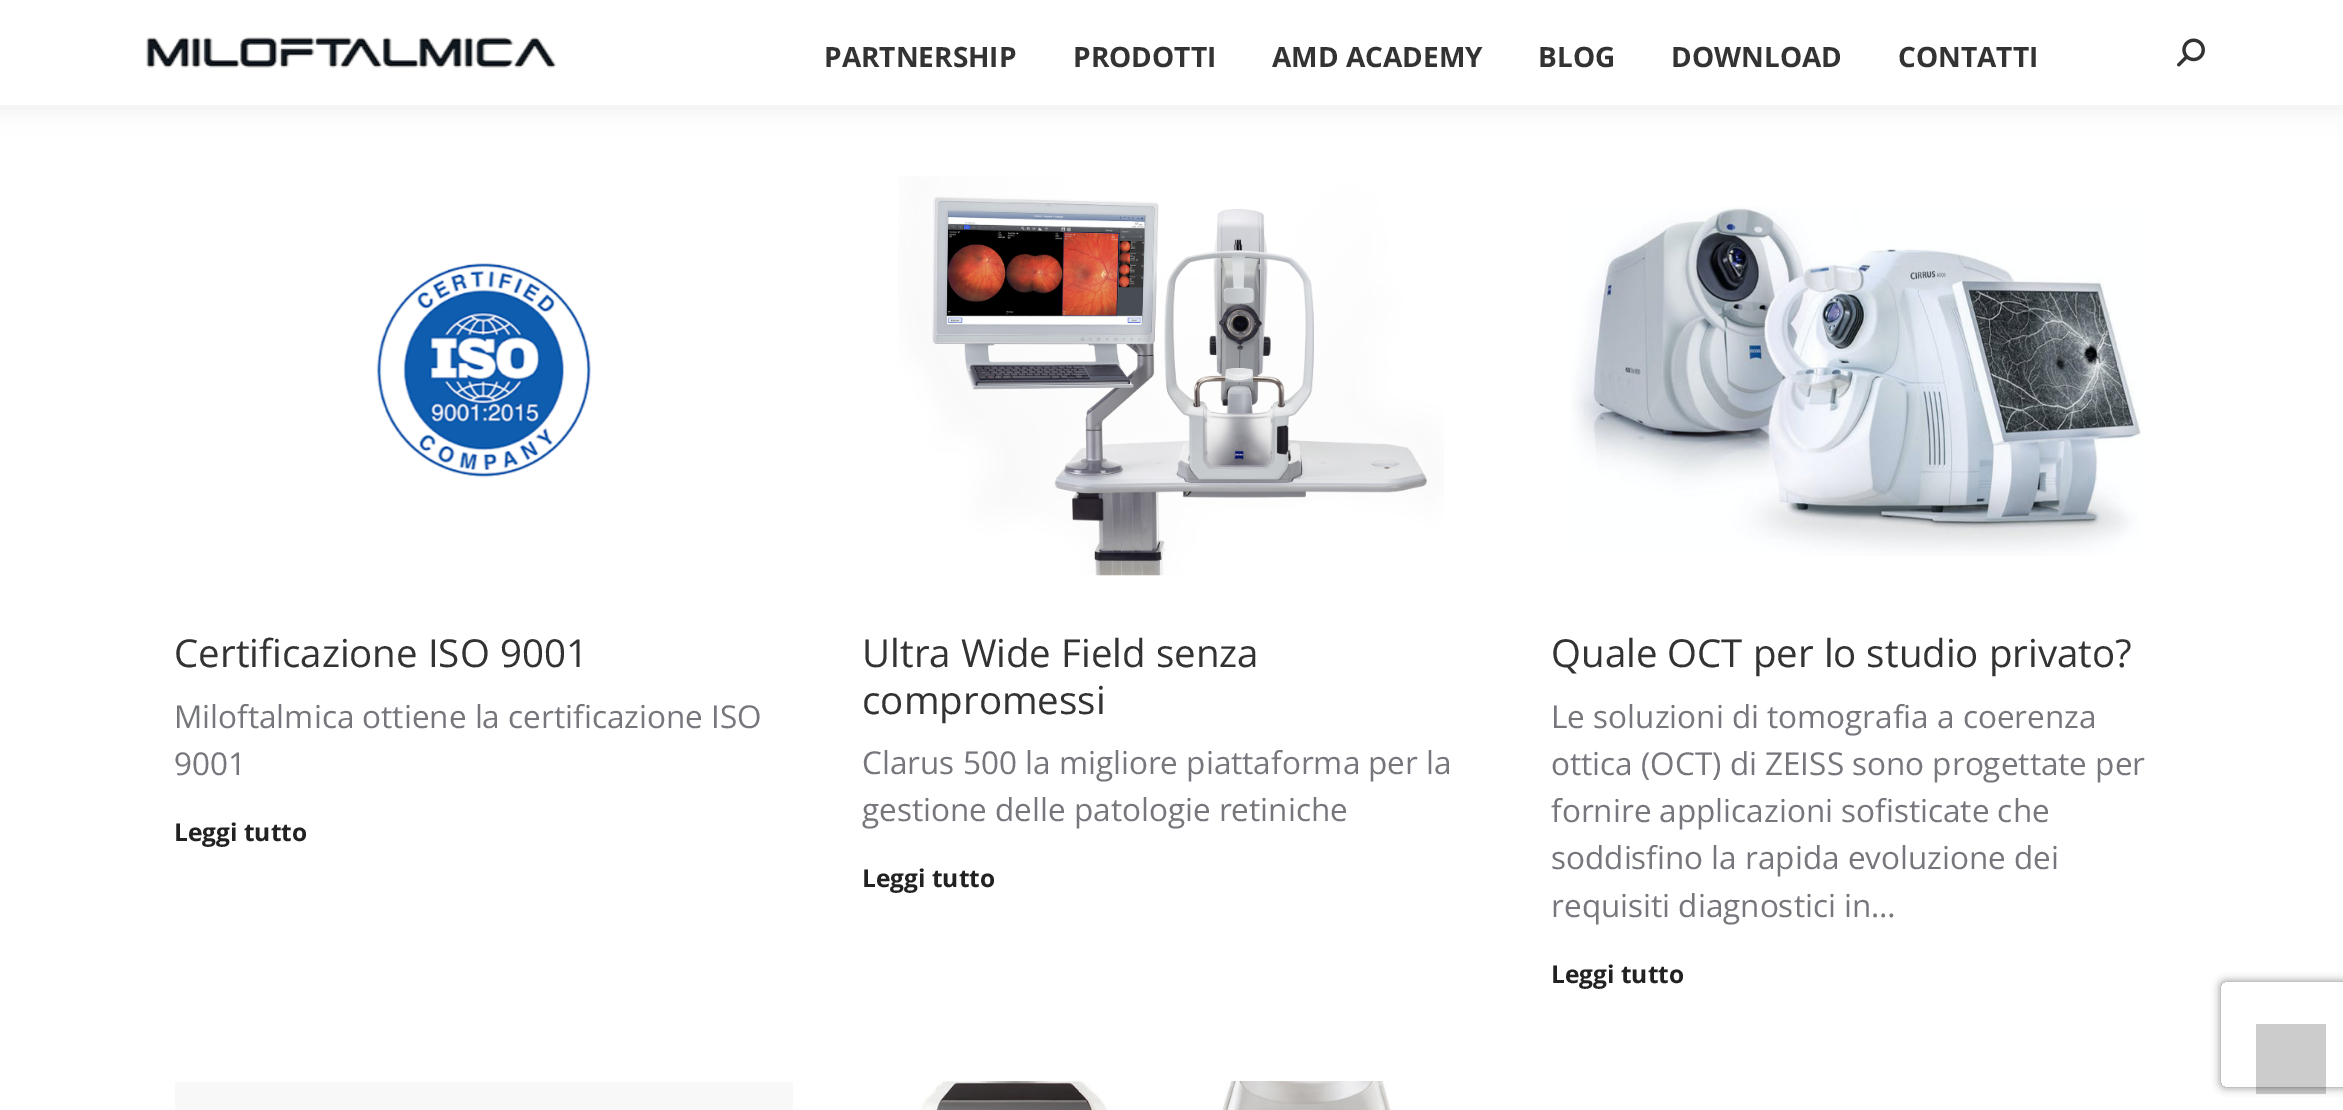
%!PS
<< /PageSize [2343 1110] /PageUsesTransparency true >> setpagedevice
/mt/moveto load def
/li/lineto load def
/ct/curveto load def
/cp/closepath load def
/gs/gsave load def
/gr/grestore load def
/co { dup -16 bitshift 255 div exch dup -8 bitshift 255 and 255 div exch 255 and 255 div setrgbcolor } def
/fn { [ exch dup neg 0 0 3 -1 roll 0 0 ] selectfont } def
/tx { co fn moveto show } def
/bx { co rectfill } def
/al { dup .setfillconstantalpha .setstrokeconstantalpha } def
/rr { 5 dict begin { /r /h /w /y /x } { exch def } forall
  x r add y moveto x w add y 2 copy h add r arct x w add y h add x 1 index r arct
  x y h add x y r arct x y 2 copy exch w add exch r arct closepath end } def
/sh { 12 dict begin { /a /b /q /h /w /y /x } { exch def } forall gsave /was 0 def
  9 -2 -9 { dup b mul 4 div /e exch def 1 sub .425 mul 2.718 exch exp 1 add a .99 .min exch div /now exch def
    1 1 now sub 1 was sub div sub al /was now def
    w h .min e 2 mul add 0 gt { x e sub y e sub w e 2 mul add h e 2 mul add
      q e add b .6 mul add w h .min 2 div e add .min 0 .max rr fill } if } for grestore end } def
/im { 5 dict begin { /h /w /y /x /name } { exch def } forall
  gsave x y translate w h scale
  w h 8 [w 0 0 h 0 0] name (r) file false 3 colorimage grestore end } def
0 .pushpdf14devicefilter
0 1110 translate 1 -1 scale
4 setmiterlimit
0 0 2343 1110 16#FFFFFF bx
16#000000 co
-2 -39 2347 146 0 13 .07 sh
0 0 2343 105 16#FFFFFF bx
(media/1.raw) 146 37 410 31 im
(media/2.raw) 2177 38 28 29 im
(media/3.raw) 376 263 215 215 im
(media/4.raw) 898 176 546 400 im
(media/5.raw) 1571 206 570 350 im
175 1082 618 28 16#F8F8F8 bx
(media/6.raw) 921 1081 470 29 im
gs
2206 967 mt 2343 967 li 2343 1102 li 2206 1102 li cp 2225 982 mt 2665 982 li 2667 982 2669 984 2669 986 ct 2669 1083 li 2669 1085 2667 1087 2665 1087 ct 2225 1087 li 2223 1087 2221 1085 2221 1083 ct 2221 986 li 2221 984 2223 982 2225 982 ct cp eoclip newpath
16#808080 co
2221 982 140 105 4 4.5 1 sh
gr
0.2 al
2256 1024 70 70 16#000000 bx
1 al
(PARTNERSHIP) 824 67 /OpenSans-Bold 28 16#333333 tx
(PRODOTTI) 1073 67 /OpenSans-Bold 28 16#333333 tx
(AMD ACADEMY) 1272 67 /OpenSans-Bold 28 16#333333 tx
(BLOG) 1538 67 /OpenSans-Bold 28 16#333333 tx
(DOWNLOAD) 1671 67 /OpenSans-Bold 28 16#333333 tx
(CONTATTI) 1898 67 /OpenSans-Bold 28 16#333333 tx
(Certificazione ISO 9001) 174 667 /OpenSans-Regular 38.5 16#333333 tx
(Miloftalmica ottiene la certificazione ISO) 174 728 /OpenSans-Regular 31.5 16#76777C tx
(9001) 174 775 /OpenSans-Regular 31.5 16#76777C tx
(Leggi tutto) 174 841 /OpenSans-Bold 24.5 16#222222 tx
(Ultra Wide Field senza) 862 667 /OpenSans-Regular 38.5 16#333333 tx
(compromessi) 862 714 /OpenSans-Regular 38.5 16#333333 tx
(Clarus 500 la migliore piattaforma per la) 862 774 /OpenSans-Regular 31.5 16#76777C tx
(gestione delle patologie retiniche) 862 821 /OpenSans-Regular 31.5 16#76777C tx
(Leggi tutto) 862 887 /OpenSans-Bold 24.5 16#222222 tx
(Quale OCT per lo studio privato?) 1551 667 /OpenSans-Regular 38.5 16#333333 tx
(Le soluzioni di tomografia a coerenza) 1551 728 /OpenSans-Regular 31.5 16#76777C tx
(ottica \(OCT\) di ZEISS sono progettate per) 1551 775 /OpenSans-Regular 31.5 16#76777C tx
(fornire applicazioni sofisticate che) 1551 822 /OpenSans-Regular 31.5 16#76777C tx
(soddisfino la rapida evoluzione dei) 1551 869 /OpenSans-Regular 31.5 16#76777C tx
(requisiti diagnostici in…) 1551 917 /OpenSans-Regular 31.5 16#76777C tx
(Leggi tutto) 1551 983 /OpenSans-Bold 24.5 16#222222 tx
.poppdf14devicefilter showpage
